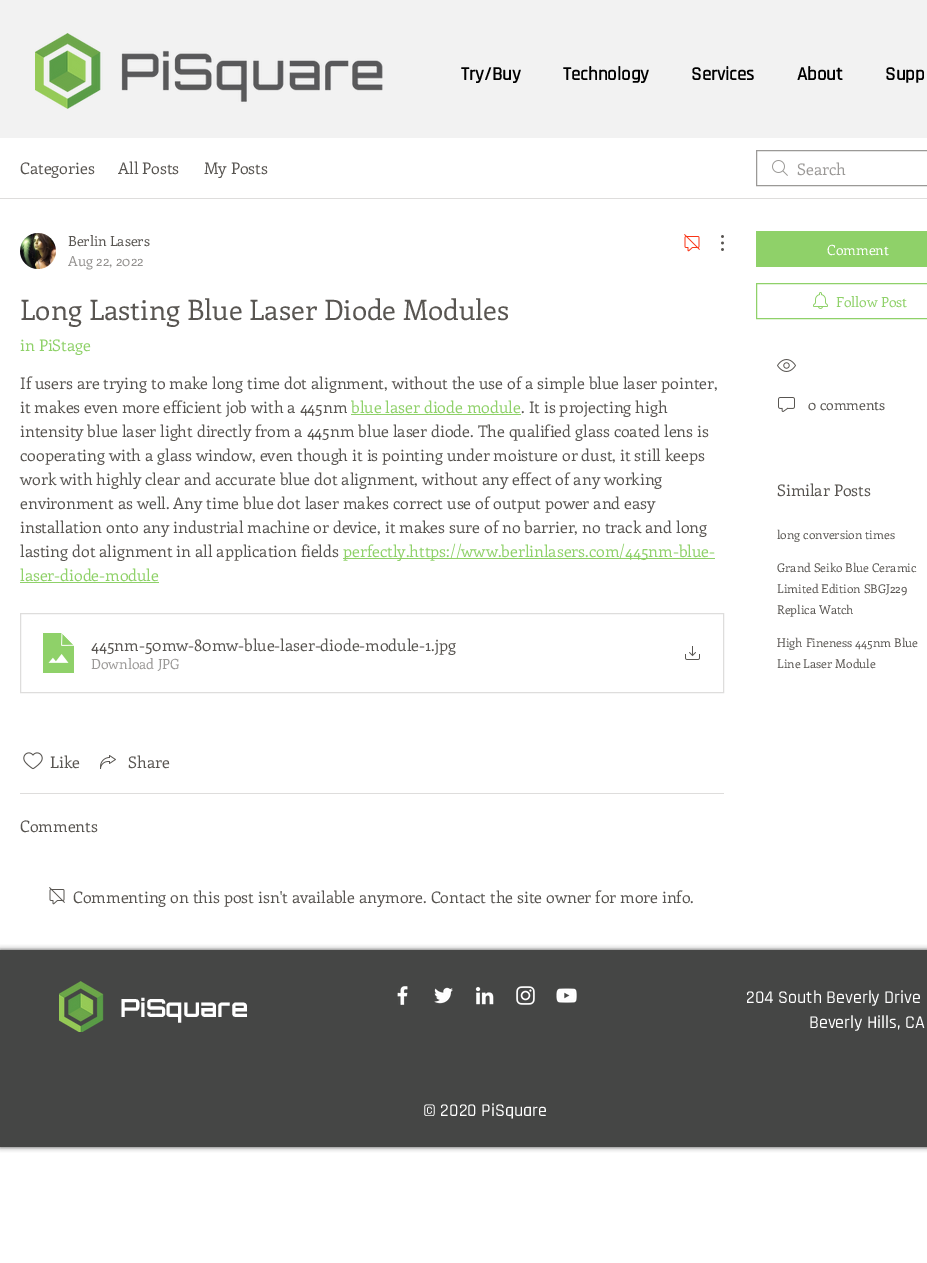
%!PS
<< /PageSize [927 1263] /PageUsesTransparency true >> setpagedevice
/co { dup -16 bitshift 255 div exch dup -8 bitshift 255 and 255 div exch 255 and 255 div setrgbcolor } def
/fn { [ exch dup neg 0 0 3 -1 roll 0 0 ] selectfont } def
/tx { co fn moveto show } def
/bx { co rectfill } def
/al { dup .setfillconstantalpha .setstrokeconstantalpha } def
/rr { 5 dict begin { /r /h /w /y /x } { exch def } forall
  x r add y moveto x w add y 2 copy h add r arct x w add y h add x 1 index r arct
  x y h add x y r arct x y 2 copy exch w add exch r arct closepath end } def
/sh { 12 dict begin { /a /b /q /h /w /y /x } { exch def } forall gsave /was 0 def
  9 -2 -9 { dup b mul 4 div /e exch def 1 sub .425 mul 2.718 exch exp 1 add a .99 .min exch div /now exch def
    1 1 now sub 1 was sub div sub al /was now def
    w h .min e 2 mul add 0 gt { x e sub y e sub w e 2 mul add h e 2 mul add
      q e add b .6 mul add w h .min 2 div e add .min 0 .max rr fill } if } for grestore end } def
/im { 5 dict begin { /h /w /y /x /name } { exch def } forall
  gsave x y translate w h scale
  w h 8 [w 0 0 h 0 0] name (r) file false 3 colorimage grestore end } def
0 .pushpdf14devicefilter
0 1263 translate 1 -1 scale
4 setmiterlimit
0 0 927 1263 16#FFFFFF bx
0 0 927 138 16#F2F2F2 bx
(media/1.raw) 35 33 348 76 im
0 198 927 1 16#DEDDDC bx
(media/2.raw) 772 160 16 16 im
16#9B9997 co
756.5 150.5 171 35 rectstroke
(media/3.raw) 20 233 36 36 im
(media/4.raw) 684 234 16 18 im
(media/5.raw) 721 235 3 16 im
351 414 170 1 16#8FD169 bx
343 558 372 1 16#8FD169 bx
20 582 139 1 16#8FD169 bx
16#DEDDDC co
20.5 613.5 703 79 rectstroke
(media/6.raw) 42 632 33 42 im
(media/7.raw) 685 646 15 14 im
(media/8.raw) 23 752 20 18 im
(media/9.raw) 100 755 16 14 im
20 793 704 1 16#DEDDDC bx
(media/10.raw) 49 887 16 18 im
756 231 171 36 16#8FD169 bx
756.5 283.5 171 35 rectstroke
(media/11.raw) 813 292 15 17 im
(media/12.raw) 777 359 19 13 im
(media/13.raw) 778 397 17 15 im
16#000000 co
0 950 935 197 0 2.5 .7 sh
0 950 927 197 16#454645 bx
(media/14.raw) 59 981 45 51 im
(media/15.raw) 397 986 11 19 im
(media/16.raw) 434 987 19 17 im
(media/17.raw) 475 986 19 19 im
(media/18.raw) 516 986 19 19 im
(media/19.raw) 556 988 21 15 im
(Try/Buy) 461 80 /Rajdhani-Bold 19 16#000000 tx
(Technology) 563 80 /Rajdhani-Bold 19 16#000000 tx
(Services) 691 80 /Rajdhani-Bold 19 16#000000 tx
(About) 797 80 /Rajdhani-Bold 19 16#000000 tx
(Supp) 885 80 /Rajdhani-Bold 19 16#000000 tx
(Categories) 20 174 /Enriqueta-Regular 16 16#585551 tx
(All Posts) 118 174 /Enriqueta-Regular 16 16#585551 tx
(My Posts) 204 174 /Enriqueta-Regular 16 16#585551 tx
(Search) 797 175 /Enriqueta-Regular 16 16#9B9997 tx
(Berlin Lasers) 68 246 /Enriqueta-Regular 14 16#585551 tx
(Aug 22, 2022) 68 266 /Enriqueta-Regular 14 16#949290 tx
(Long Lasting Blue Laser Diode Modules) 20 320 /Enriqueta-Regular 28 16#585551 tx
(in PiStage) 20 351 /Enriqueta-Regular 16 16#8FD169 tx
(If users are trying to make long time dot alignment, without the use of a simple blue laser pointer,) 20 389 /Enriqueta-Regular 16 16#585551 tx
(it makes even more efficient job with a 445nm) 20 413 /Enriqueta-Regular 16 16#585551 tx
(blue laser diode module) 351 413 /Enriqueta-Regular 16 16#8FD169 tx
(. It is projecting high) 521 413 /Enriqueta-Regular 16 16#585551 tx
(intensity blue laser light directly from a 445nm blue laser diode. The qualified glass coated lens is) 20 437 /Enriqueta-Regular 16 16#585551 tx
(cooperating with a glass window, even though it is pointing under moisture or dust, it still keeps) 20 461 /Enriqueta-Regular 16 16#585551 tx
(work with highly clear and accurate blue dot alignment, without any effect of any working) 20 485 /Enriqueta-Regular 16 16#585551 tx
(environment as well. Any time blue dot laser makes correct use of output power and easy) 20 509 /Enriqueta-Regular 16 16#585551 tx
(installation onto any industrial machine or device, it makes sure of no barrier, no track and long) 20 533 /Enriqueta-Regular 16 16#585551 tx
(lasting dot alignment in all application fields) 20 557 /Enriqueta-Regular 16 16#585551 tx
(perfectly.https://www.berlinlasers.com/445nm-blue-) 343 557 /Enriqueta-Regular 16 16#8FD169 tx
(laser-diode-module) 20 581 /Enriqueta-Regular 16 16#8FD169 tx
(445nm-50mw-80mw-blue-laser-diode-module-1) 91 651 /Enriqueta-Regular 16 16#585551 tx
(.jpg) 431 651 /Enriqueta-Regular 16 16#585551 tx
(Download JPG) 91 669 /Enriqueta-Regular 14 16#9B9997 tx
(Like) 50 768 /Enriqueta-Regular 16 16#585551 tx
(Share) 128 768 /Enriqueta-Regular 16 16#585551 tx
(Comments) 20 832 /Enriqueta-Regular 16 16#585551 tx
(Commenting on this post isn't available anymore. Contact the site owner for more info.) 73 903 /Enriqueta-Regular 16 16#585551 tx
(Comment) 827 255 /Enriqueta-Regular 14 16#FFFFFF tx
(Follow Post) 836 307 /Enriqueta-Regular 14 16#8FD169 tx
(0 comments) 808 410 /Enriqueta-Regular 14 16#585551 tx
(Similar Posts) 777 496 /Enriqueta-Regular 16 16#585551 tx
(long conversion times) 777 539 /Enriqueta-Regular 12 16#585551 tx
(Grand Seiko Blue Ceramic) 777 572 /Enriqueta-Regular 12 16#585551 tx
(Limited Edition SBGJ229) 777 593 /Enriqueta-Regular 12 16#585551 tx
(Replica Watch) 777 614 /Enriqueta-Regular 12 16#585551 tx
(High Fineness 445nm Blue) 777 647 /Enriqueta-Regular 12 16#585551 tx
(Line Laser Module) 777 668 /Enriqueta-Regular 12 16#585551 tx
(PiSquare) 120 1017 /Orbitron-Bold 25 16#FFFFFF tx
(204 South Beverly Drive) 746 1003 /Rajdhani-Medium 18 16#FFFFFF tx
(Beverly Hills, CA) 809 1028 /Rajdhani-Medium 18 16#FFFFFF tx
(© 2020 PiSquare) 423 1116 /Rajdhani-Medium 18 16#FFFFFF tx
.poppdf14devicefilter showpage
